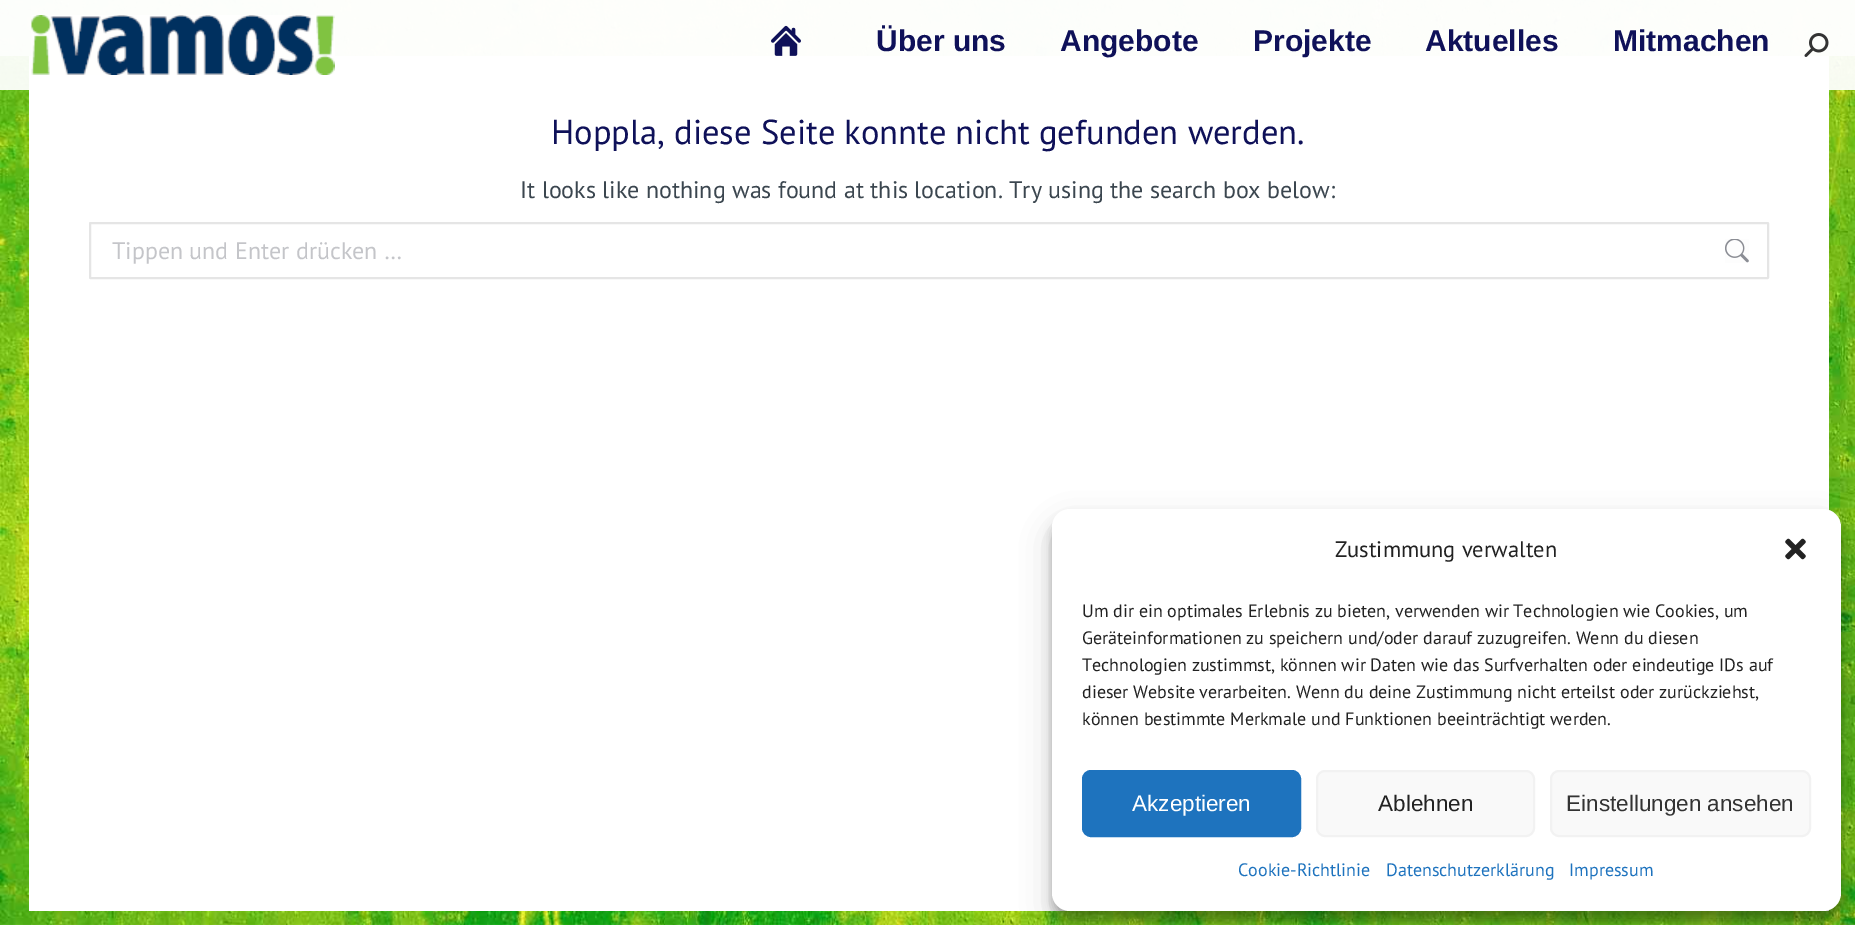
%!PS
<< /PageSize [1855 925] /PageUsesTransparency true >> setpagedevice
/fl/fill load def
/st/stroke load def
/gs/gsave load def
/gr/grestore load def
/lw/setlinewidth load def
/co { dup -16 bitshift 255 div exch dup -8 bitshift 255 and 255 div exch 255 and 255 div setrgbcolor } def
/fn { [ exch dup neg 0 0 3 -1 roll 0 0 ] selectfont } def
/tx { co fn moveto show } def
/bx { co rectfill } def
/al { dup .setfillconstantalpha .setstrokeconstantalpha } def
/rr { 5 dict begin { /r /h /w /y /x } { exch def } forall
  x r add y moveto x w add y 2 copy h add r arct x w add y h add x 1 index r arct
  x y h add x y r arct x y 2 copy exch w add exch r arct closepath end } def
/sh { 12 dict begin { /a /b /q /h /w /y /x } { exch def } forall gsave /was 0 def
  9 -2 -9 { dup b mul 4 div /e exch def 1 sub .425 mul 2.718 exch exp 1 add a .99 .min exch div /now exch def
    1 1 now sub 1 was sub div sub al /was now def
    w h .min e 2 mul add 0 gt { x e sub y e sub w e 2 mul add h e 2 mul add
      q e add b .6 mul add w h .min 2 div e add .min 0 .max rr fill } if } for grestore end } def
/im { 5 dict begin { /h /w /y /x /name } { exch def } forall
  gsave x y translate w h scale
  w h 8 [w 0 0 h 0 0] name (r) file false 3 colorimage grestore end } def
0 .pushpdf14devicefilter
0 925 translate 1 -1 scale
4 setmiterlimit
0 0 1855 925 16#FFFFFF bx
(media/1.raw) 0 0 1855 925 im
0.69 al
0 0 1855 56 16#FFFFFF bx
1 al
29 56 1800 855 16#FFFFFF bx
0.94 al
0 0 1855 90 16#FFFFFF bx
1 al
(media/2.raw) 31 15 304 60 im
(media/3.raw) 771 25 30 31 im
(media/4.raw) 1804 33 25 24 im
16#E5E5E5 co
2 lw
90 223 1678 55 .5 rr st
(media/5.raw) 1725 239 24 24 im
16#000000 co
1052 518 789 402 18 4.5 .23 sh
1052 524 789 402 18 15 .19 sh
16#FFFFFF co
1052 509 789 402 18 rr fl
(media/6.raw) 1785 538 21 22 im
16#1E73BE co
1083 771 217 65 8 rr gs fl gr
st
16#F9F9F9 co
1317 771 217 65 8 rr gs fl gr
16#F2F2F2 co
st
16#F9F9F9 co
1551 771 259 65 8 rr gs fl gr
16#F2F2F2 co
st
(Über uns) 876 51 /LiberationSans-Bold 30 16#0F1159 tx
(Angebote) 1060 51 /LiberationSans-Bold 30 16#0F1159 tx
(Projekte) 1253 51 /LiberationSans-Bold 30 16#0F1159 tx
(Aktuelles) 1425 51 /LiberationSans-Bold 30 16#0F1159 tx
(Mitmachen) 1613 51 /LiberationSans-Bold 30 16#0F1159 tx
(Hoppla, diese Seite konnte nicht gefunden werden.) 551 144 /PTSans-Regular 34.5 16#0F1159 tx
(It looks like nothing was found at this location. Try using the search box below:) 520 198 /PTSans-Regular 24 16#3B464F tx
(Tippen und Enter drücken …) 112 259 /PTSans-Regular 24 16#C4C5C9 tx
(Zustimmung verwalten) 1335 557 /PTSans-Regular 22.5 16#222222 tx
(Um dir ein optimales Erlebnis zu bieten, verwenden wir Technologien wie Cookies, um) 1082 617 /PTSans-Regular 18 16#222222 tx
(Geräteinformationen zu speichern und/oder darauf zuzugreifen. Wenn du diesen) 1082 644 /PTSans-Regular 18 16#222222 tx
(Technologien zustimmst, können wir Daten wie das Surfverhalten oder eindeutige IDs auf) 1082 671 /PTSans-Regular 18 16#222222 tx
(dieser Website verarbeiten. Wenn du deine Zustimmung nicht erteilst oder zurückziehst,) 1082 698 /PTSans-Regular 18 16#222222 tx
(können bestimmte Merkmale und Funktionen beeinträchtigt werden.) 1082 725 /PTSans-Regular 18 16#222222 tx
(Akzeptieren) 1132 811 /LiberationSans-Regular 22.5 16#FFFFFF tx
(Ablehnen) 1378 811 /LiberationSans-Regular 22.5 16#222222 tx
(Einstellungen ansehen) 1566 811 /LiberationSans-Regular 22.5 16#333333 tx
(Cookie-Richtlinie) 1238 876 /PTSans-Regular 18 16#1E73BE tx
(Datenschutzerklärung) 1386 876 /PTSans-Regular 18 16#1E73BE tx
(Impressum) 1569 876 /PTSans-Regular 18 16#1E73BE tx
.poppdf14devicefilter showpage
